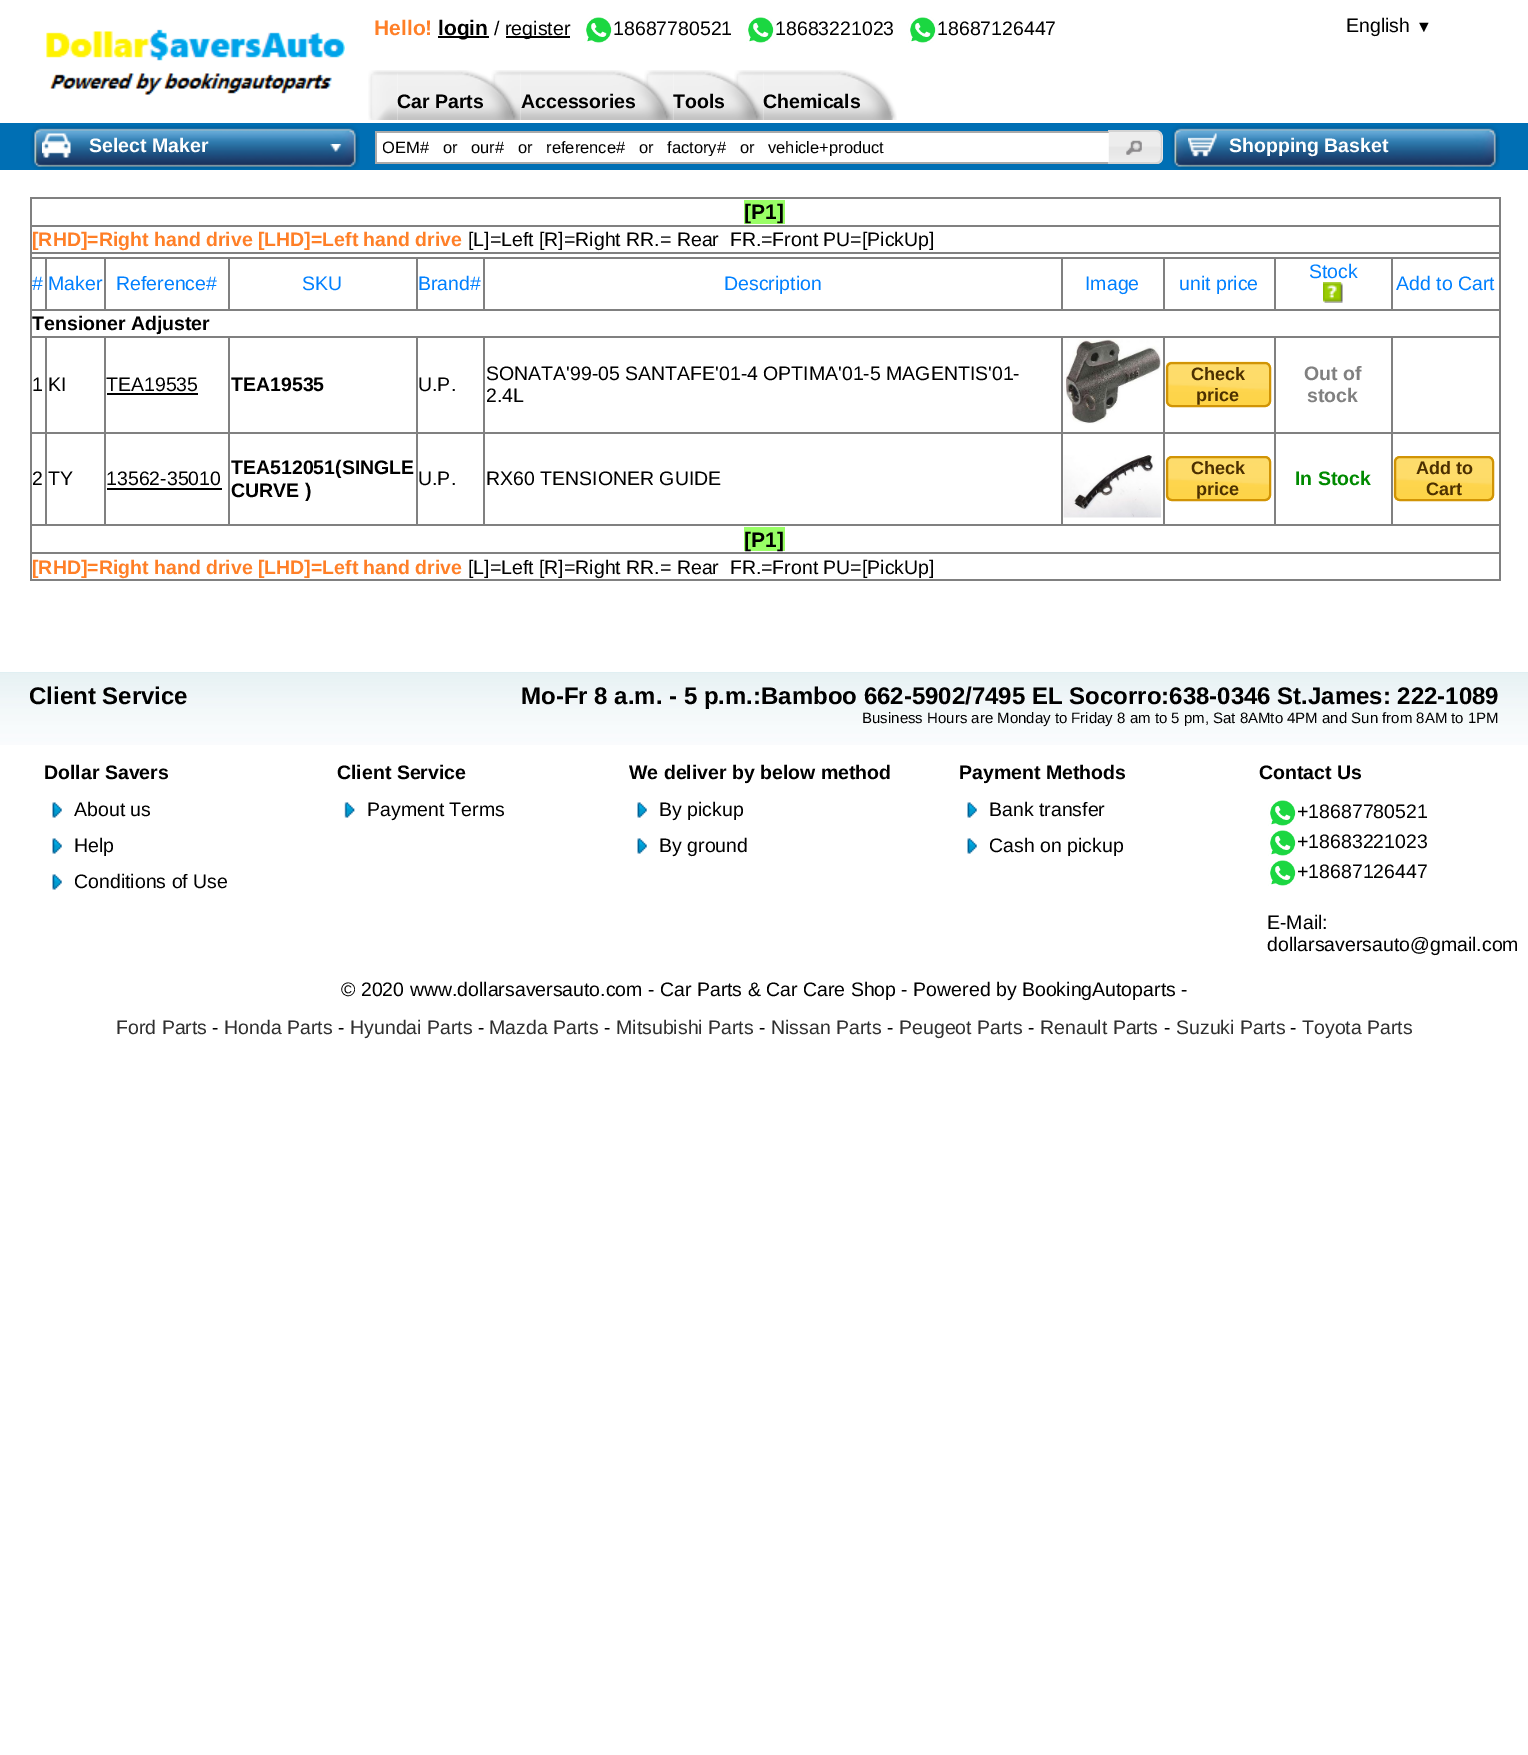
%!PS
<< /PageSize [1528 1755] >> setpagedevice
/mt/moveto load def
/li/lineto load def
/ct/curveto load def
/cp/closepath load def
/fl/fill load def
/st/stroke load def
/gs/gsave load def
/gr/grestore load def
/lw/setlinewidth load def
/co { dup -16 bitshift 255 div exch dup -8 bitshift 255 and 255 div exch 255 and 255 div setrgbcolor } def
/fn { [ exch dup neg 0 0 3 -1 roll 0 0 ] selectfont } def
/tx { co fn moveto show } def
/bx { co rectfill } def
/rr { 5 dict begin { /r /h /w /y /x } { exch def } forall
  x r add y moveto x w add y 2 copy h add r arct x w add y h add x 1 index r arct
  x y h add x y r arct x y 2 copy exch w add exch r arct closepath end } def
/im { 5 dict begin { /h /w /y /x /name } { exch def } forall
  gsave x y translate w h scale
  w h 8 [w 0 0 h 0 0] name (r) file false 3 colorimage grestore end } def
0 1755 translate 1 -1 scale
4 setmiterlimit
0 0 1528 1755 16#FFFFFF bx
(media/1.raw) 46 29 299 66 im
438 36 51 2 16#000000 bx
506 36 64 2 16#000000 bx
(media/2.raw) 584 17 28 26 im
(media/3.raw) 746 17 28 26 im
(media/2.raw) 908 17 28 26 im
(media/4.raw) 368 70 30 50 im
(media/6.raw) 491 70 30 50 im
(media/5.raw) 397 70 122 50 im
(media/4.raw) 644 70 30 50 im
(media/7.raw) 520 70 152 50 im
(media/4.raw) 734 70 30 50 im
(media/8.raw) 673 70 89 50 im
(media/9.raw) 763 70 134 50 im
0 123 1528 47 16#006FB4 bx
(media/10.raw) 30 125 330 45 im
(media/11.raw) 42 133 29 25 im
(media/12.raw) 330 144 12 8 im
377 133 732 29 16#FFFFFF bx
375 131 734 2 16#AAAAAA bx
375 162 734 2 16#AAAAAA bx
375 131 2 33 16#AAAAAA bx
16#E6E6E6 co
1109 131 mt 1157 131 li 1160.5 131 1163 133.5 1163 137 ct 1163 158 li 1163 161.5 1160.5 164 1157 164 ct 1109 164 li cp fl
(media/13.raw) 1108 130 55 34 im
16#D3D3D3 co
1108 130 mt 1156 130 li 1160 130 1162 133 1162 136 ct 1162 158 li 1162 161 1160 164 1156 164 ct 1108 164 li cp 1108 132 mt 1140 132 li 1161 132 1161 128 1161 147 ct 1161 166 1161 162 1140 162 ct 1108 162 li cp eofill
(media/14.raw) 1126 140 16 15 im
(media/15.raw) 1126 140 16 15 im
(media/16.raw) 1170 125 330 45 im
(media/17.raw) 1188 133 29 24 im
30 197 1470 2 16#808080 bx
30 225 1470 2 16#808080 bx
30 252 1470 2 16#808080 bx
1391 257 109 2 16#808080 bx
30 309 1470 2 16#808080 bx
1391 336 109 2 16#808080 bx
1391 432 109 2 16#808080 bx
30 524 1470 2 16#808080 bx
30 552 1470 2 16#808080 bx
1499 552 2 29 16#808080 bx
1499 524 2 30 16#808080 bx
1499 432 2 93 16#808080 bx
1499 336 2 98 16#808080 bx
1499 309 2 29 16#808080 bx
1499 257 2 54 16#808080 bx
1499 252 2 6 16#808080 bx
1499 225 2 29 16#808080 bx
1499 197 2 30 16#808080 bx
1391 257 2 54 16#808080 bx
1274 257 118 2 16#808080 bx
1274 257 2 54 16#808080 bx
1163 257 112 2 16#808080 bx
1163 257 2 54 16#808080 bx
1061 257 103 2 16#808080 bx
1061 257 2 54 16#808080 bx
483 257 579 2 16#808080 bx
483 257 2 54 16#808080 bx
416 257 69 2 16#808080 bx
416 257 2 54 16#808080 bx
228 257 189 2 16#808080 bx
228 257 2 54 16#808080 bx
104 257 126 2 16#808080 bx
104 257 2 54 16#808080 bx
45 257 60 2 16#808080 bx
45 257 2 54 16#808080 bx
30 257 17 2 16#808080 bx
1391 432 2 93 16#808080 bx
1274 432 118 2 16#808080 bx
1391 336 2 98 16#808080 bx
1274 336 118 2 16#808080 bx
1274 432 2 93 16#808080 bx
1163 432 112 2 16#808080 bx
1274 336 2 98 16#808080 bx
1163 336 112 2 16#808080 bx
1163 432 2 93 16#808080 bx
1061 432 103 2 16#808080 bx
1163 336 2 98 16#808080 bx
1061 336 103 2 16#808080 bx
1061 432 2 93 16#808080 bx
483 432 579 2 16#808080 bx
1061 336 2 98 16#808080 bx
483 336 579 2 16#808080 bx
483 432 2 93 16#808080 bx
416 432 69 2 16#808080 bx
483 336 2 98 16#808080 bx
416 336 69 2 16#808080 bx
416 432 2 93 16#808080 bx
228 432 189 2 16#808080 bx
416 336 2 98 16#808080 bx
228 336 189 2 16#808080 bx
228 432 2 93 16#808080 bx
104 432 126 2 16#808080 bx
228 336 2 98 16#808080 bx
104 336 126 2 16#808080 bx
104 432 2 93 16#808080 bx
45 432 60 2 16#808080 bx
104 336 2 98 16#808080 bx
45 336 60 2 16#808080 bx
45 432 2 93 16#808080 bx
30 432 17 2 16#808080 bx
45 336 2 98 16#808080 bx
30 336 17 2 16#808080 bx
30 579 1470 2 16#808080 bx
30 552 2 29 16#808080 bx
30 524 2 30 16#808080 bx
30 432 2 93 16#808080 bx
30 336 2 98 16#808080 bx
30 309 2 29 16#808080 bx
30 257 2 54 16#808080 bx
30 252 2 6 16#808080 bx
30 225 2 29 16#808080 bx
30 197 2 30 16#808080 bx
744 200 41 24 16#99FF66 bx
(media/18.raw) 1323 282 20 21 im
107 393 91 2 16#000000 bx
(media/19.raw) 1064 339 97 85 im
(media/20.raw) 1165 361 106 46 im
16#D19405 co
2 lw
1167 363 103 43 5 rr st
107 488 115 2 16#000000 bx
(media/21.raw) 1063 455 98 63 im
(media/22.raw) 1165 456 106 45 im
16#D19405 co
1167 457 103 43 5 rr st
(media/23.raw) 1393 456 101 45 im
1395 457 98 43 5 rr st
744 527 41 24 16#99FF66 bx
(media/24.raw) 0 672 1528 73 im
(media/25.raw) 52 802 10 16 im
(media/25.raw) 52 838 10 16 im
(media/25.raw) 52 874 10 16 im
(media/26.raw) 344 802 11 16 im
(media/25.raw) 637 802 10 16 im
(media/25.raw) 637 838 10 16 im
(media/25.raw) 967 802 10 16 im
(media/25.raw) 967 838 10 16 im
(media/2.raw) 1268 800 28 26 im
(media/2.raw) 1268 830 28 26 im
(media/2.raw) 1268 860 28 26 im
(Hello!) 374 35 /LiberationSans-Bold 21 16#FF7F27 tx
(login) 438 35 /LiberationSans-Bold 21 16#000000 tx
(/) 494 35 /LiberationSans-Regular 19.5 16#000000 tx
(register) 505 35 /LiberationSans-Regular 19.5 16#000000 tx
(18687780521) 613 35 /LiberationSans-Regular 19.5 16#000000 tx
(18683221023) 775 35 /LiberationSans-Regular 19.5 16#000000 tx
(18687126447) 937 35 /LiberationSans-Regular 19.5 16#000000 tx
(English) 1346 32 /LiberationSans-Regular 19.5 16#000000 tx
(▼) 1416 32 /LiberationSans-Regular 16 16#000000 tx
(Car Parts) 397 108 /LiberationSans-Bold 19.5 16#000000 tx
(Accessories) 521 108 /LiberationSans-Bold 19.5 16#000000 tx
(Tools) 673 108 /LiberationSans-Bold 19.5 16#000000 tx
(Chemicals) 763 108 /LiberationSans-Bold 19.5 16#000000 tx
(Select Maker) 89 152 /LiberationSans-Bold 19.5 16#FFFFFF tx
gs
383 138 720 18 rectclip
(OEM#   or   our#   or   reference#   or   factory#   or   vehicle+product) 382 153 /LiberationSans-Regular 16.5 16#000000 tx
gr
(Shopping Basket) 1229 152 /LiberationSans-Bold 19.5 16#FFFFFF tx
([P1]) 744 219 /LiberationSans-Bold 21 16#000000 tx
([RHD]=Right hand drive [LHD]=Left hand drive) 32 246 /LiberationSans-Bold 19.5 16#FF7F27 tx
([L]=Left [R]=Right RR.= Rear  FR.=Front PU=[PickUp]) 468 246 /LiberationSans-Regular 19.5 16#000000 tx
(Stock) 1309 278 /LiberationSans-Regular 19.5 16#0080FF tx
(#) 32 290 /LiberationSans-Regular 19.5 16#0080FF tx
(Maker) 48 290 /LiberationSans-Regular 19.5 16#0080FF tx
(Reference#) 116 290 /LiberationSans-Regular 19.5 16#0080FF tx
(SKU) 302 290 /LiberationSans-Regular 19.5 16#0080FF tx
(Brand#) 418 290 /LiberationSans-Regular 19.5 16#0080FF tx
(Description) 724 290 /LiberationSans-Regular 19.5 16#0080FF tx
(Image) 1085 290 /LiberationSans-Regular 19.5 16#0080FF tx
(unit price) 1179 290 /LiberationSans-Regular 19.5 16#0080FF tx
(Add to Cart) 1396 290 /LiberationSans-Regular 19.5 16#0080FF tx
(Tensioner Adjuster) 32 330 /LiberationSans-Bold 19.5 16#000000 tx
(1) 32 391 /LiberationSans-Regular 19.5 16#000000 tx
(KI) 48 391 /LiberationSans-Regular 19.5 16#000000 tx
(TEA19535) 106 391 /LiberationSans-Regular 19.5 16#000000 tx
(TEA19535) 231 391 /LiberationSans-Bold 19.5 16#000000 tx
(U.P.) 418 391 /LiberationSans-Regular 19.5 16#000000 tx
(SONATA'99-05 SANTAFE'01-4 OPTIMA'01-5 MAGENTIS'01-) 486 380 /LiberationSans-Regular 19.5 16#000000 tx
(2.4L) 486 402 /LiberationSans-Regular 19.5 16#000000 tx
(Check) 1191 380 /LiberationSans-Bold 18 16#4C3000 tx
(price) 1196 401 /LiberationSans-Bold 18 16#4C3000 tx
(Out of) 1304 380 /LiberationSans-Bold 19.5 16#808080 tx
(stock) 1307 402 /LiberationSans-Bold 19.5 16#808080 tx
(2) 32 485 /LiberationSans-Regular 19.5 16#000000 tx
(TY) 48 485 /LiberationSans-Regular 19.5 16#000000 tx
(13562-35010) 106 485 /LiberationSans-Regular 19.5 16#000000 tx
(TEA512051\(SINGLE) 231 474 /LiberationSans-Bold 19.5 16#000000 tx
(CURVE \)) 231 497 /LiberationSans-Bold 19.5 16#000000 tx
(U.P.) 418 485 /LiberationSans-Regular 19.5 16#000000 tx
(RX60 TENSIONER GUIDE) 486 485 /LiberationSans-Regular 19.5 16#000000 tx
(Check) 1191 474 /LiberationSans-Bold 18 16#4C3000 tx
(price) 1196 495 /LiberationSans-Bold 18 16#4C3000 tx
(In Stock) 1295 485 /LiberationSans-Bold 19.5 16#008A00 tx
(Add to) 1416 474 /LiberationSans-Bold 18 16#4C3000 tx
(Cart) 1426 495 /LiberationSans-Bold 18 16#4C3000 tx
([P1]) 744 547 /LiberationSans-Bold 21 16#000000 tx
([RHD]=Right hand drive [LHD]=Left hand drive) 32 574 /LiberationSans-Bold 19.5 16#FF7F27 tx
([L]=Left [R]=Right RR.= Rear  FR.=Front PU=[PickUp]) 468 574 /LiberationSans-Regular 19.5 16#000000 tx
(Client Service) 29 704 /LiberationSans-Bold 24 16#000000 tx
(Mo-Fr 8 a.m. - 5 p.m.:Bamboo 662-5902/7495 EL Socorro:638-0346 St.James: 222-1089) 521 704 /LiberationSans-Bold 24 16#000000 tx
(Business Hours are Monday to Friday 8 am to 5 pm, Sat 8AMto 4PM and Sun from 8AM to 1PM) 862 723 /LiberationSans-Regular 15 16#000000 tx
(Dollar Savers) 44 779 /LiberationSans-Bold 19.5 16#000000 tx
(About us) 74 816 /LiberationSans-Regular 19.5 16#000000 tx
(Help) 74 852 /LiberationSans-Regular 19.5 16#000000 tx
(Conditions of Use) 74 888 /LiberationSans-Regular 19.5 16#000000 tx
(Client Service) 337 779 /LiberationSans-Bold 19.5 16#000000 tx
(Payment Terms) 367 816 /LiberationSans-Regular 19.5 16#000000 tx
(We deliver by below method) 629 779 /LiberationSans-Bold 19.5 16#000000 tx
(By pickup) 659 816 /LiberationSans-Regular 19.5 16#000000 tx
(By ground) 659 852 /LiberationSans-Regular 19.5 16#000000 tx
(Payment Methods) 959 779 /LiberationSans-Bold 19.5 16#000000 tx
(Bank transfer) 989 816 /LiberationSans-Regular 19.5 16#000000 tx
(Cash on pickup) 989 852 /LiberationSans-Regular 19.5 16#000000 tx
(Contact Us) 1259 779 /LiberationSans-Bold 19.5 16#000000 tx
(+18687780521) 1297 818 /LiberationSans-Regular 19.5 16#000000 tx
(+18683221023) 1297 848 /LiberationSans-Regular 19.5 16#000000 tx
(+18687126447) 1297 878 /LiberationSans-Regular 19.5 16#000000 tx
(E-Mail:) 1267 929 /LiberationSans-Regular 19.5 16#000000 tx
(dollarsaversauto@gmail.com) 1267 951 /LiberationSans-Regular 19.5 16#000000 tx
(© 2020 www.dollarsaversauto.com - Car Parts & Car Care Shop - Powered by BookingAutoparts -) 341 996 /LiberationSans-Regular 19.5 16#000000 tx
(Ford Parts) 116 1034 /LiberationSans-Regular 19.5 16#2F2F2F tx
(-) 212 1034 /LiberationSans-Regular 19.5 16#000000 tx
(Honda Parts) 224 1034 /LiberationSans-Regular 19.5 16#2F2F2F tx
(-) 338 1034 /LiberationSans-Regular 19.5 16#000000 tx
(Hyundai Parts) 350 1034 /LiberationSans-Regular 19.5 16#2F2F2F tx
(-) 478 1034 /LiberationSans-Regular 19.5 16#000000 tx
(Mazda Parts) 489 1034 /LiberationSans-Regular 19.5 16#2F2F2F tx
(-) 604 1034 /LiberationSans-Regular 19.5 16#000000 tx
(Mitsubishi Parts) 616 1034 /LiberationSans-Regular 19.5 16#2F2F2F tx
(-) 759 1034 /LiberationSans-Regular 19.5 16#000000 tx
(Nissan Parts) 771 1034 /LiberationSans-Regular 19.5 16#2F2F2F tx
(-) 887 1034 /LiberationSans-Regular 19.5 16#000000 tx
(Peugeot Parts) 899 1034 /LiberationSans-Regular 19.5 16#2F2F2F tx
(-) 1028 1034 /LiberationSans-Regular 19.5 16#000000 tx
(Renault Parts) 1040 1034 /LiberationSans-Regular 19.5 16#2F2F2F tx
(-) 1164 1034 /LiberationSans-Regular 19.5 16#000000 tx
(Suzuki Parts) 1176 1034 /LiberationSans-Regular 19.5 16#2F2F2F tx
(-) 1290 1034 /LiberationSans-Regular 19.5 16#000000 tx
(Toyota Parts) 1302 1034 /LiberationSans-Regular 19.5 16#2F2F2F tx
showpage
